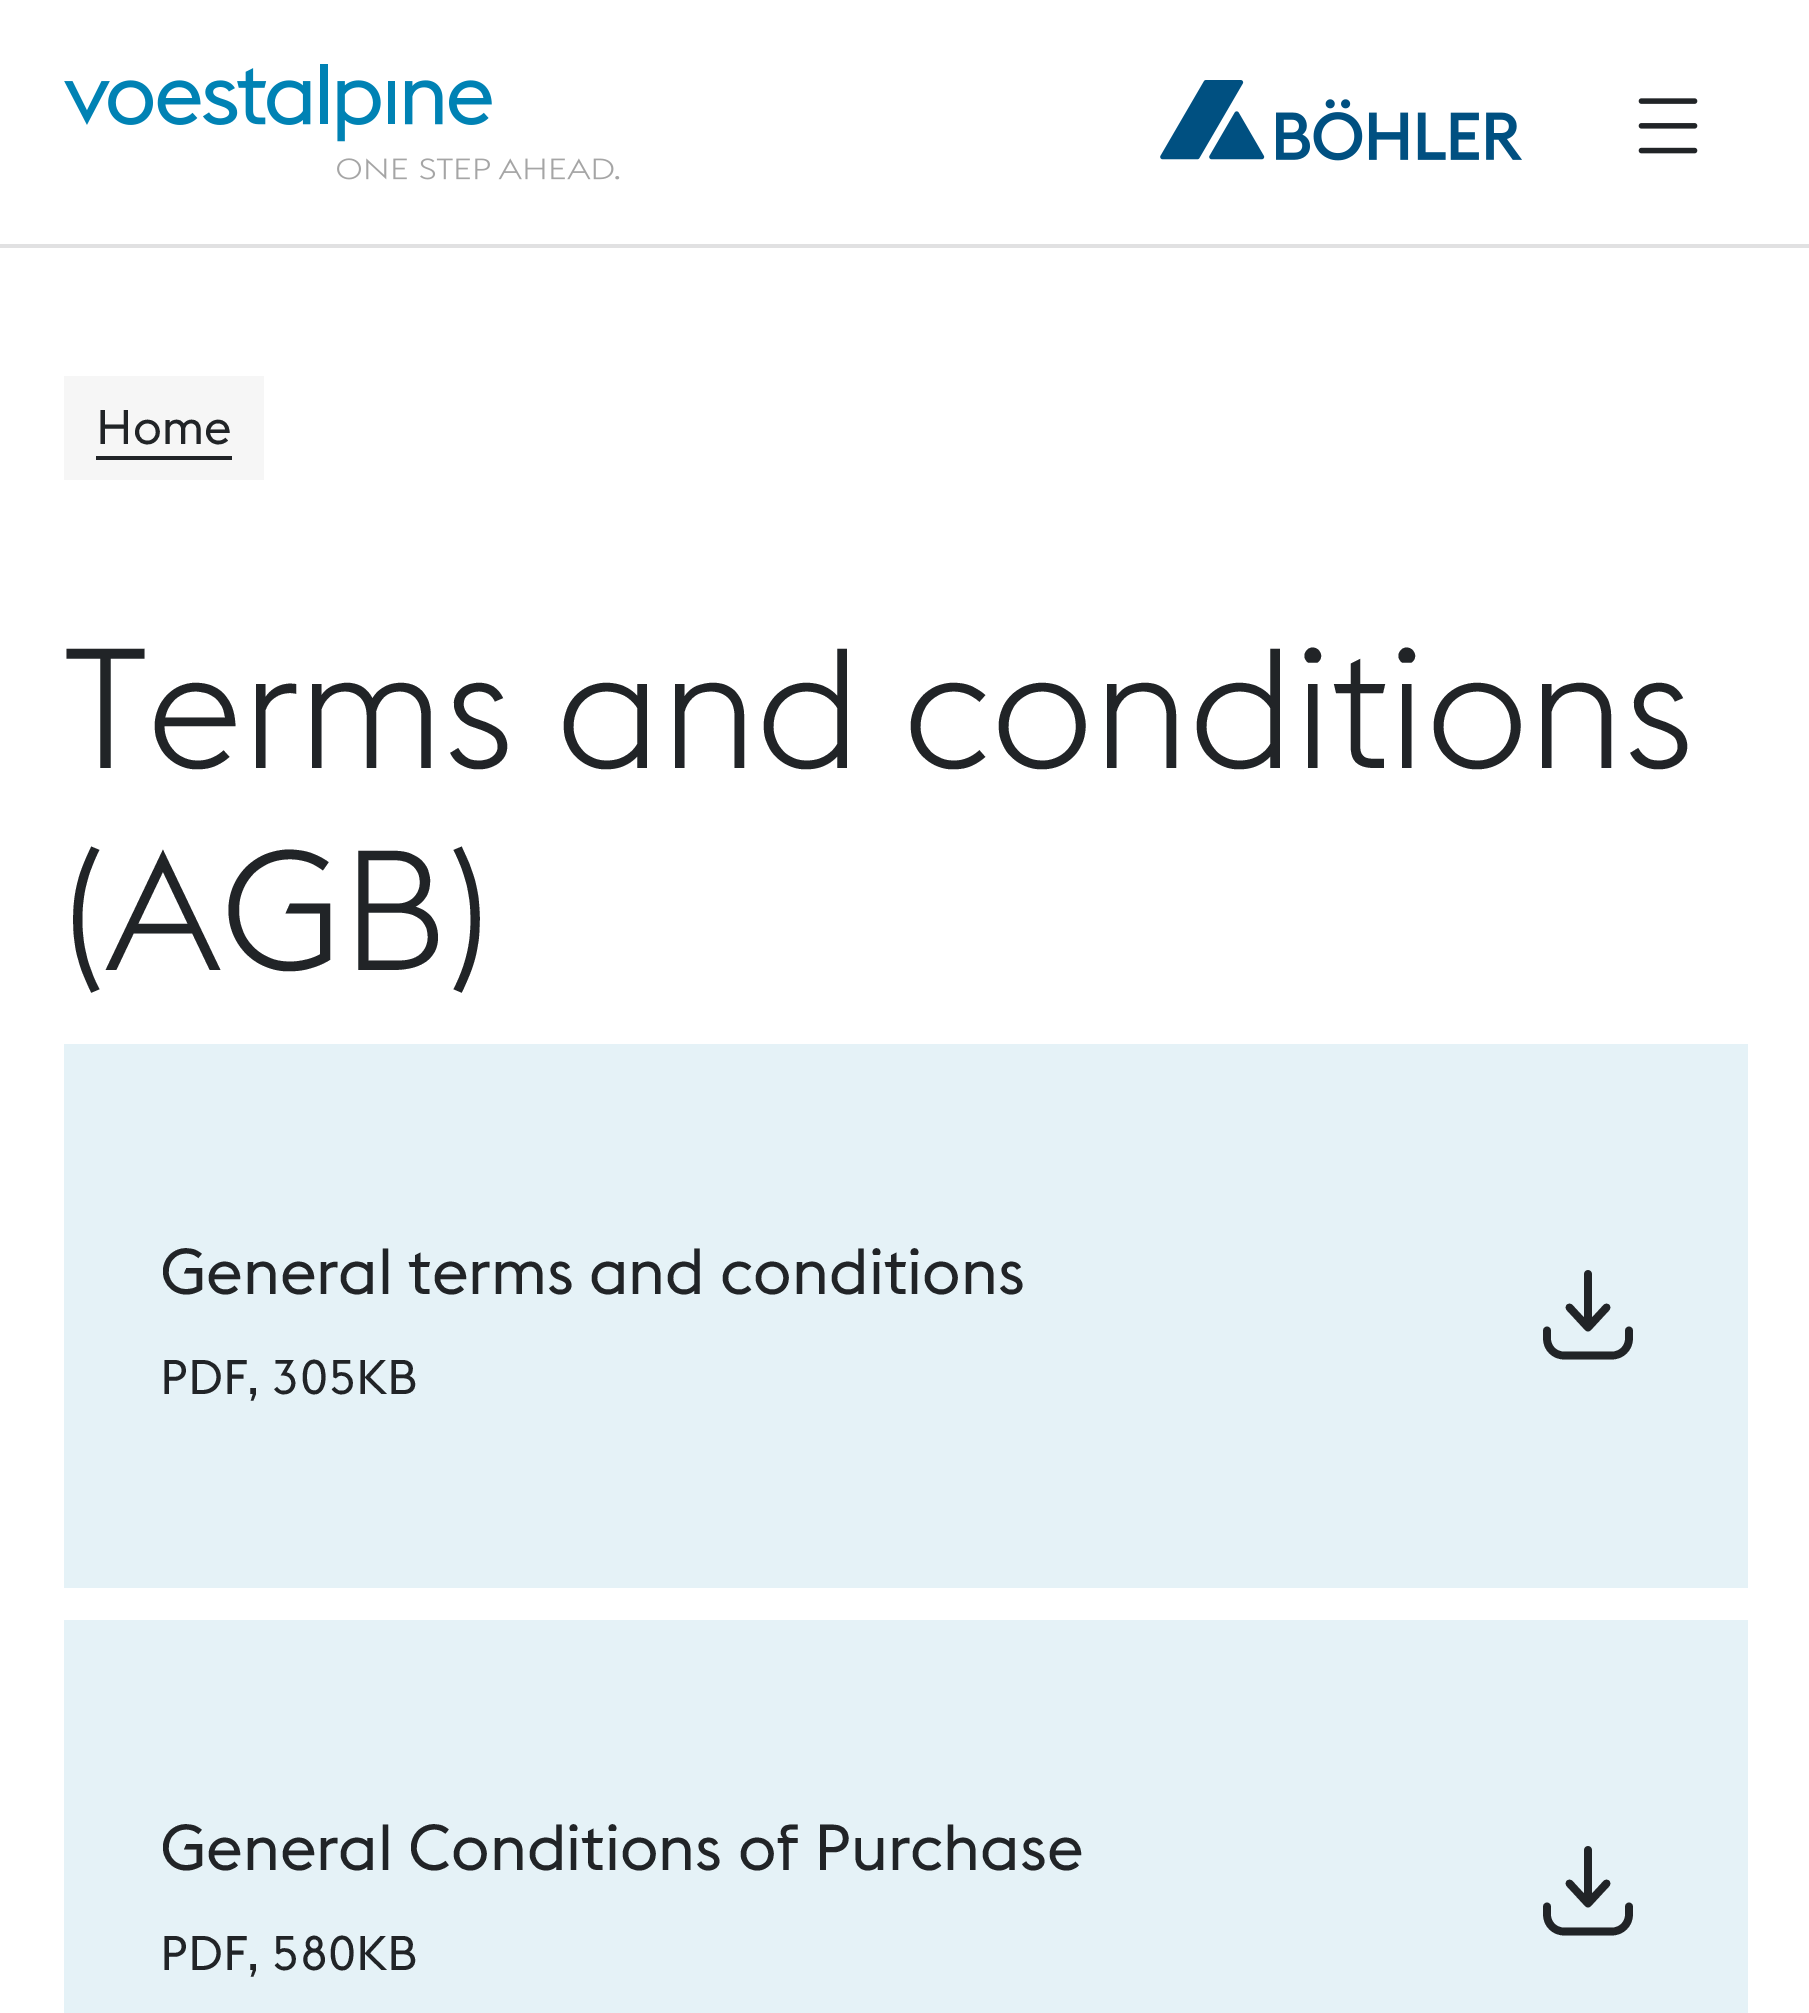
%!PS
<< /PageSize [1809 2013] >> setpagedevice
/mt/moveto load def
/li/lineto load def
/ct/curveto load def
/st/stroke load def
/lw/setlinewidth load def
/co { dup -16 bitshift 255 div exch dup -8 bitshift 255 and 255 div exch 255 and 255 div setrgbcolor } def
/fn { [ exch dup neg 0 0 3 -1 roll 0 0 ] selectfont } def
/tx { co fn moveto show } def
/bx { co rectfill } def
/im { 5 dict begin { /h /w /y /x /name } { exch def } forall
  gsave x y translate w h scale
  w h 8 [w 0 0 h 0 0] name (r) file false 3 colorimage grestore end } def
0 2013 translate 1 -1 scale
4 setmiterlimit
0 0 1809 2013 16#FFFFFF bx
0 244 1809 4 16#E1E1E2 bx
(media/1.raw) 64 64 556 116 im
(media/2.raw) 1160 80 362 81 im
(media/3.raw) 1638 98 60 56 im
64 376 200 104 16#F6F6F6 bx
96 456 136 4 16#212427 bx
64 1044 1684 544 16#E5F2F7 bx
16#212427 co
7.7 lw
1 setlinecap
1 setlinejoin
1588 1327.5 mt 1588 1274 li 1588 1327.5 mt 1569.5 1307.5 li 1588 1327.5 mt 1606.5 1307.5 li st
1547 1330.5 mt 1547 1338.5 li 1547 1348 1554.5 1355.5 1564 1355.5 ct 1612 1355.5 li 1621.5 1355.5 1629 1348 1629 1338.5 ct 1629 1330.5 li st
64 1620 1684 393 16#E5F2F7 bx
16#212427 co
1588 1903.5 mt 1588 1850 li 1588 1903.5 mt 1569.5 1883.5 li 1588 1903.5 mt 1606.5 1883.5 li st
1547 1906.5 mt 1547 1914.5 li 1547 1924 1554.5 1931.5 1564 1931.5 ct 1612 1931.5 li 1621.5 1931.5 1629 1924 1629 1914.5 ct 1629 1906.5 li st
(Home) 96 444 /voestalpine-Regular 48 16#212427 tx
(Terms and conditions) 64 768 /voestalpine-Light 168 16#212427 tx
(\(AGB\)) 64 970 /voestalpine-Light 168 16#212427 tx
(General terms and conditions) 160 1294 /voestalpine-Regular 64 16#212427 tx
(PDF, 305KB) 160 1394 /voestalpine-Regular 48 16#212427 tx
(General Conditions of Purchase) 160 1870 /voestalpine-Regular 64 16#212427 tx
(PDF, 580KB) 160 1970 /voestalpine-Regular 48 16#212427 tx
showpage
